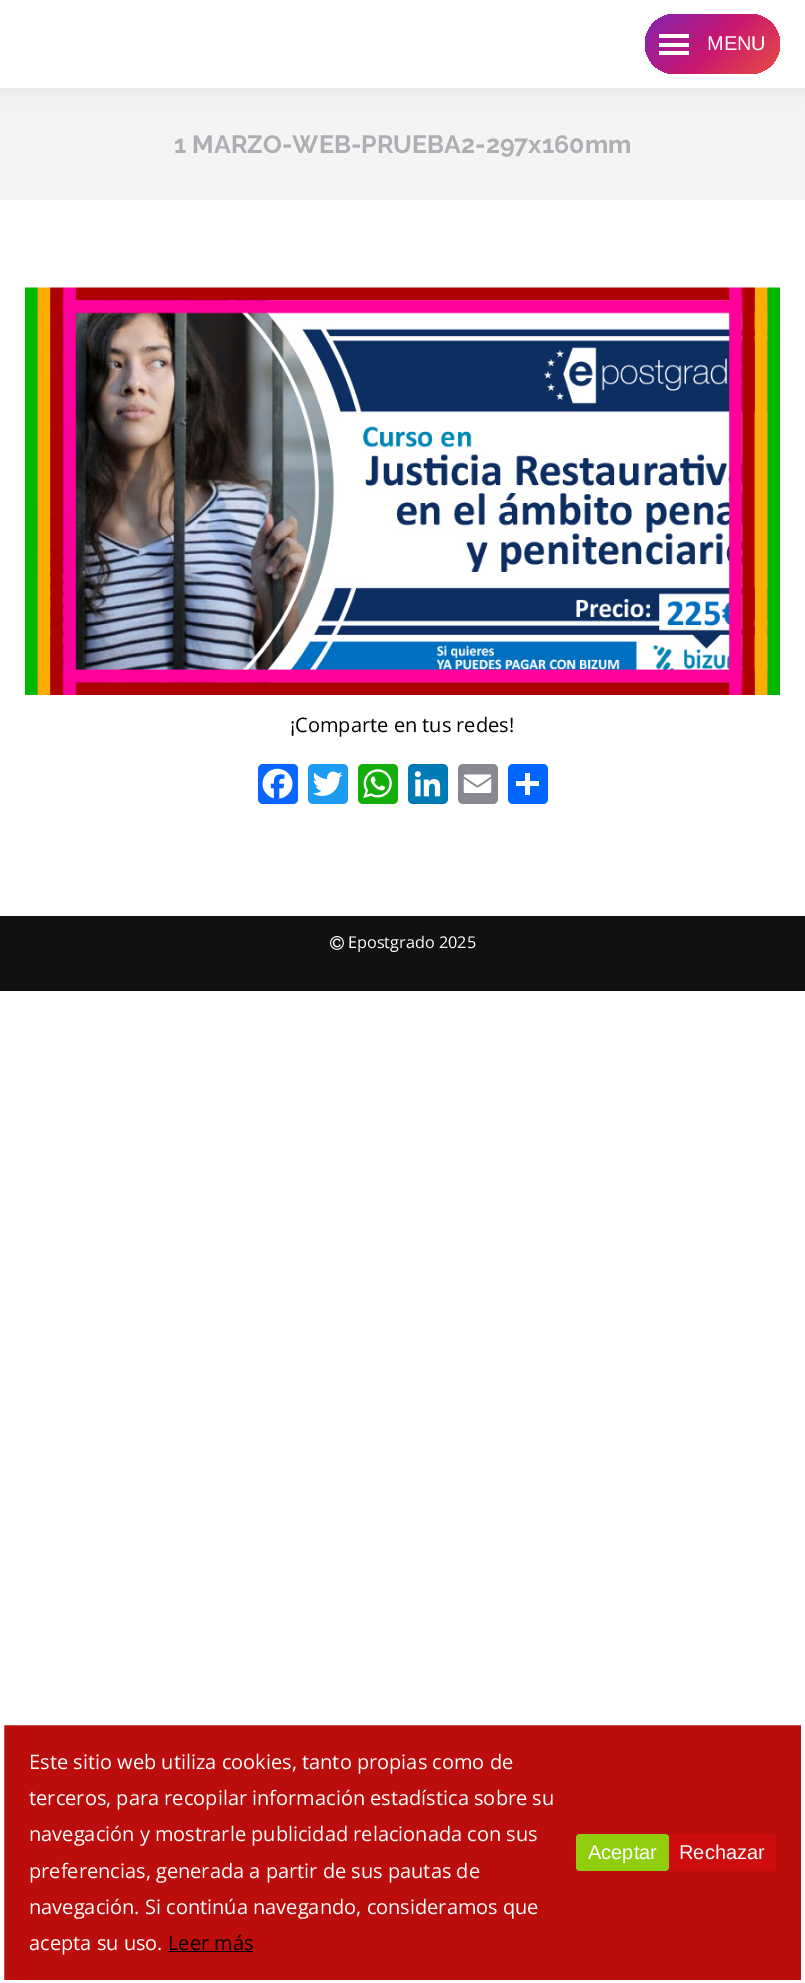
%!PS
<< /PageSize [805 1983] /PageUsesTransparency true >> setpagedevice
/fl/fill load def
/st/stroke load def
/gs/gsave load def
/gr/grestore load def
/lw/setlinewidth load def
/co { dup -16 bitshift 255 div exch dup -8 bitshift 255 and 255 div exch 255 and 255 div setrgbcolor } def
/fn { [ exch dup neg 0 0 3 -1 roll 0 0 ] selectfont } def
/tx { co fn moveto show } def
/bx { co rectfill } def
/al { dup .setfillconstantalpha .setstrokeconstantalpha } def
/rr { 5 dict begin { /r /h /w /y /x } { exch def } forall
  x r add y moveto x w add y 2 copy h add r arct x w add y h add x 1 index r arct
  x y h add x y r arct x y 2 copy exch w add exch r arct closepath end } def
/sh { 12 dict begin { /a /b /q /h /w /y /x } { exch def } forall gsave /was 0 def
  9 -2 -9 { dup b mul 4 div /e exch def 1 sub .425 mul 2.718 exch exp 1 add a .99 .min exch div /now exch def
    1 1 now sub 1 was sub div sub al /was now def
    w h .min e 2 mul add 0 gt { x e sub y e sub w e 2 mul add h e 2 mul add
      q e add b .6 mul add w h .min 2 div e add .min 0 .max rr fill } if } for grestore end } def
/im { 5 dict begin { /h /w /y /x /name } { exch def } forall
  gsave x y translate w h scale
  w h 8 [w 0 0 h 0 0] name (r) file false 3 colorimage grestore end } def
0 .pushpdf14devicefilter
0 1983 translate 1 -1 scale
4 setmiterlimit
0 0 805 1983 16#FFFFFF bx
0 88 805 112 16#F4F4F5 bx
16#000000 co
-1 -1 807 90 0 9.5 .07 sh
0 0 805 88 16#FFFFFF bx
gs 645 14 135 60 30 rr clip newpath
<< /ShadingType 2 /ColorSpace /DeviceRGB /Coords [664 -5 761 93] /Extend [true true] /Function << /FunctionType 3 /Domain [0 1] /Functions [<< /FunctionType 2 /Domain [0 1] /C0 [.518 .141 .675] /C1 [.518 .141 .675] /N 1 >> << /FunctionType 2 /Domain [0 1] /C0 [.518 .141 .675] /C1 [.784 .09 .447] /N 1 >> << /FunctionType 2 /Domain [0 1] /C0 [.784 .09 .447] /C1 [.906 .298 .259] /N 1 >> << /FunctionType 2 /Domain [0 1] /C0 [.906 .298 .259] /C1 [.906 .298 .259] /N 1 >>] /Bounds [.03 .51 .98] /Encode [0 1 0 1 0 1 0 1] >> >> shfill gr
659 34 30 4 16#FFFFFF bx
659 43 30 4 16#FFFFFF bx
659 51 30 4 16#FFFFFF bx
(media/1.raw) 25 287 755 408 im
16#0866FF co
258 764 40 40 5 rr fl
(media/2.raw) 262 768 31 31 im
16#1D9BF0 co
308 764 40 40 5 rr fl
(media/3.raw) 312 771 31 25 im
16#12AF0A co
358 764 40 40 5 rr fl
(media/4.raw) 363 769 29 30 im
16#007BB5 co
408 764 40 40 5 rr fl
(media/5.raw) 414 771 27 26 im
16#888990 co
458 764 40 40 5 rr fl
(media/6.raw) 463 774 29 19 im
16#0166FF co
508 764 40 40 5 rr fl
525 773 5 22 16#FFFFFF bx
516 781 23 5 16#FFFFFF bx
0 916 805 75 16#111111 bx
(media/7.raw) 330 936 14 14 im
16#BC0D0D co
2 1723 801 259 2 rr gs fl gr
16#FFFFFF co
4 lw
st
168 1951 85 1 16#000000 bx
16#90CD0D co
576 1834 93 37 4 rr fl
16#CD0D0D co
669 1834 107 37 4 rr fl
(MENU) 707 50 /LiberationSans-Regular 20 16#FFFFFF tx
(1 MARZO-WEB-PRUEBA2-297x160mm) 174 153 /Raleway-Bold 25 16#ADAFB3 tx
(¡Comparte en tus redes!) 290 732 /OpenSans-Regular 20 16#000000 tx
(Epostgrado 2025) 348 948 /OpenSans-Regular 16.25 16#FFFFFF tx
(Este sitio web utiliza cookies, tanto propias como de) 29 1769 /OpenSans-Regular 20 16#FFFFFF tx
(terceros, para recopilar información estadística sobre su) 29 1805 /OpenSans-Regular 20 16#FFFFFF tx
(navegación y mostrarle publicidad relacionada con sus) 29 1841 /OpenSans-Regular 20 16#FFFFFF tx
(preferencias, generada a partir de sus pautas de) 29 1878 /OpenSans-Regular 20 16#FFFFFF tx
(navegación. Si continúa navegando, consideramos que) 29 1914 /OpenSans-Regular 20 16#FFFFFF tx
(acepta su uso.) 29 1950 /OpenSans-Regular 20 16#FFFFFF tx
(Leer más) 168 1950 /OpenSans-Regular 20 16#000000 tx
(Aceptar) 588 1859 /LiberationSans-Regular 20 16#FFFFFF tx
(Rechazar) 679 1859 /LiberationSans-Regular 20 16#FFFFFF tx
.poppdf14devicefilter showpage
